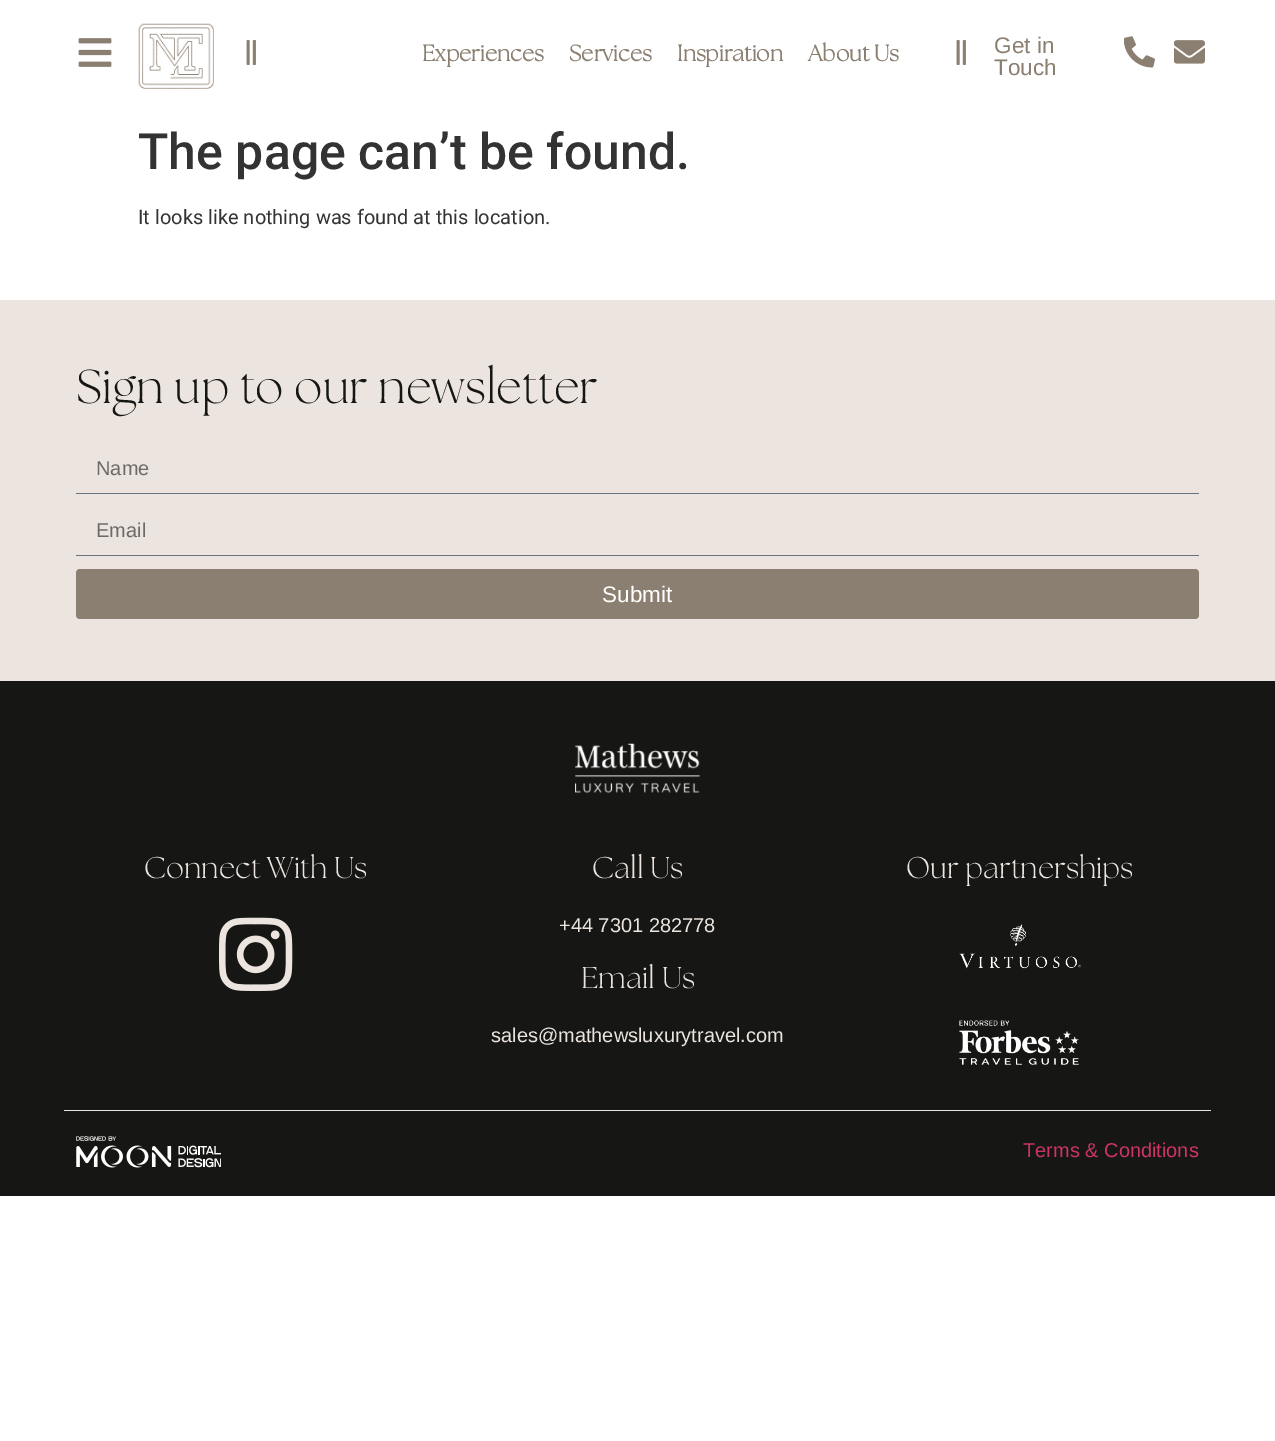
%!PS
<< /PageSize [1275 1441] >> setpagedevice
/fl/fill load def
/co { dup -16 bitshift 255 div exch dup -8 bitshift 255 and 255 div exch 255 and 255 div setrgbcolor } def
/fn { [ exch dup neg 0 0 3 -1 roll 0 0 ] selectfont } def
/tx { co fn moveto show } def
/bx { co rectfill } def
/rr { 5 dict begin { /r /h /w /y /x } { exch def } forall
  x r add y moveto x w add y 2 copy h add r arct x w add y h add x 1 index r arct
  x y h add x y r arct x y 2 copy exch w add exch r arct closepath end } def
/im { 5 dict begin { /h /w /y /x /name } { exch def } forall
  gsave x y translate w h scale
  w h 8 [w 0 0 h 0 0] name (r) file false 3 colorimage grestore end } def
0 1441 translate 1 -1 scale
4 setmiterlimit
0 0 1275 1441 16#FFFFFF bx
(media/1.raw) 78 38 34 29 im
(media/2.raw) 138 23 76 66 im
(media/3.raw) 246 40 10 25 im
(media/3.raw) 956 40 10 25 im
(media/4.raw) 1124 36 31 32 im
(media/5.raw) 1174 40 31 24 im
0 300 1275 381 16#ECE5DF bx
76 493 1123 1 16#69727D bx
76 555 1123 1 16#69727D bx
16#8B7F71 co
76 569 1123 50 4 rr fl
0 681 1275 515 16#161715 bx
(media/6.raw) 575 743 125 50 im
64 1110 1147 1 16#ECE5DF bx
(media/7.raw) 218 917 75 74 im
(media/8.raw) 959 924 122 45 im
(media/9.raw) 959 1020 120 45 im
(media/10.raw) 76 1136 145 32 im
(Experiences) 422 61 /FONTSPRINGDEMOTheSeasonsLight-Bold 22.5 16#8B7F71 tx
(Services) 569 61 /FONTSPRINGDEMOTheSeasonsLight-Bold 22.5 16#8B7F71 tx
(Inspiration) 677 61 /FONTSPRINGDEMOTheSeasonsLight-Bold 22.5 16#8B7F71 tx
(About Us) 808 61 /FONTSPRINGDEMOTheSeasonsLight-Bold 22.5 16#8B7F71 tx
(Get in) 994 53 /LiberationSans-Regular 22.5 16#8B7F71 tx
(Touch) 994 75 /LiberationSans-Regular 22.5 16#8B7F71 tx
(The page can’t be found.) 138 169 /Roboto-Medium 50 16#333333 tx
(It looks like nothing was found at this location.) 138 224 /Roboto-Regular 20 16#333333 tx
(Sign up to our newsletter) 76 403 /FONTSPRINGDEMOTheSeasonsLight-Light 47.5 16#161715 tx
(Name) 96 475 /LiberationSans-Regular 20 16#6C6966 tx
(Email) 96 537 /LiberationSans-Regular 20 16#6C6966 tx
(Submit) 602 602 /LiberationSans-Regular 22.5 16#FFFFFF tx
(Connect With Us) 144 878 /FONTSPRINGDEMOTheSeasonsLight-Light 30 16#ECE5DF tx
(Call Us) 592 878 /FONTSPRINGDEMOTheSeasonsLight-Light 30 16#ECE5DF tx
(+44 7301 282778) 559 932 /LiberationSans-Regular 20 16#ECE5DF tx
(Email Us) 581 988 /FONTSPRINGDEMOTheSeasonsLight-Light 30 16#ECE5DF tx
(sales@mathewsluxurytravel.com) 491 1042 /LiberationSans-Regular 20 16#ECE5DF tx
(Our partnerships) 906 878 /FONTSPRINGDEMOTheSeasonsLight-Light 30 16#ECE5DF tx
(Terms & Conditions) 1023 1157 /LiberationSans-Regular 20 16#CC3366 tx
showpage
